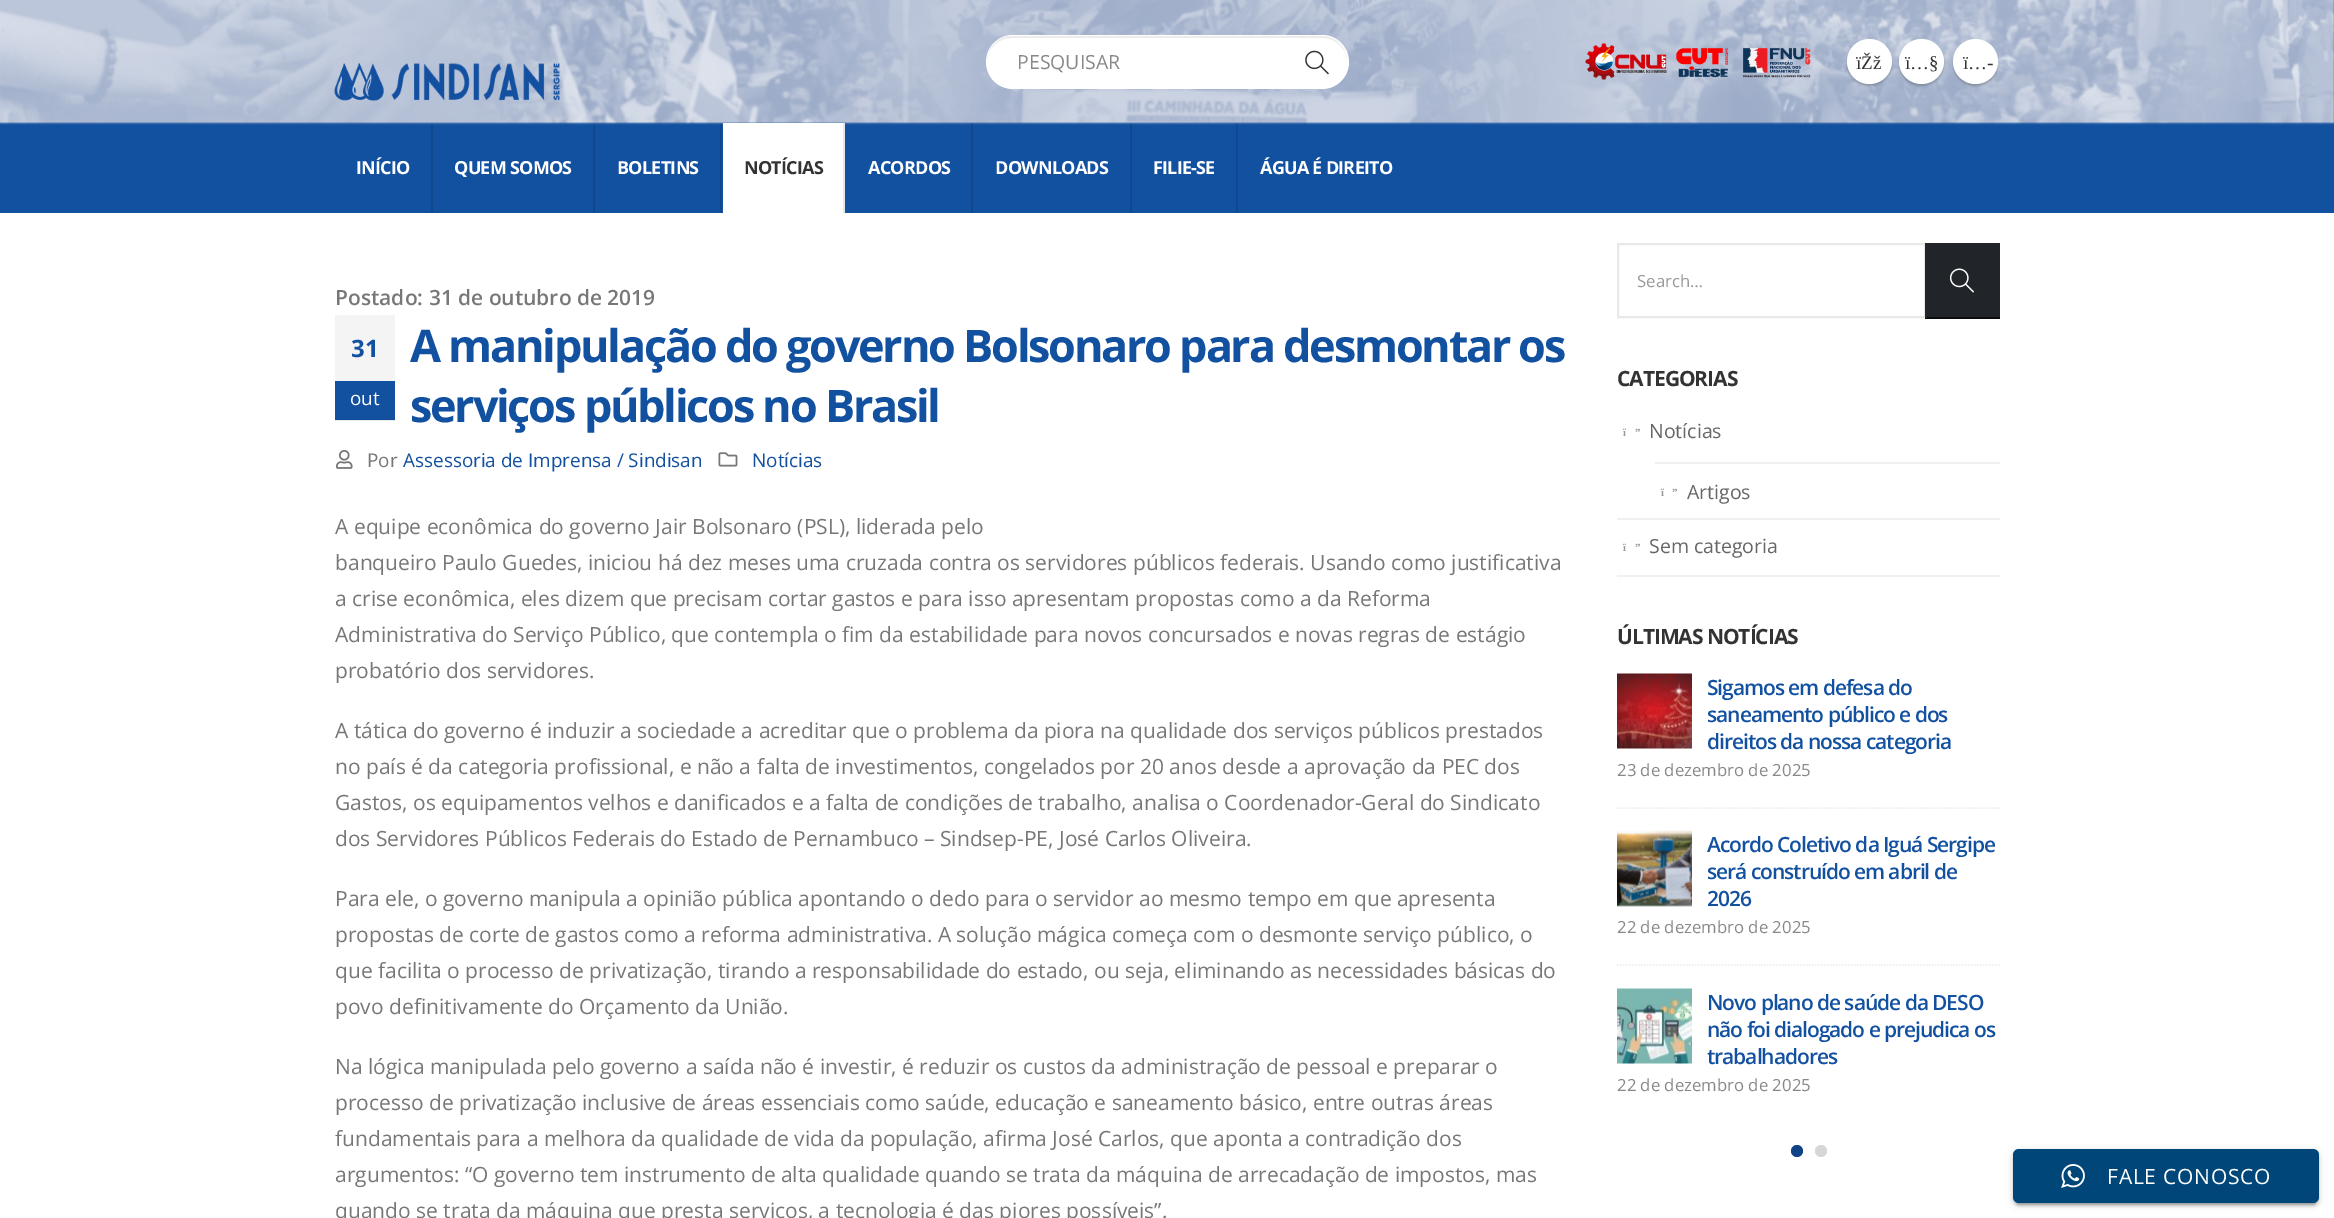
%!PS
<< /PageSize [2334 1218] /PageUsesTransparency true >> setpagedevice
/mt/moveto load def
/li/lineto load def
/ct/curveto load def
/cp/closepath load def
/fl/fill load def
/st/stroke load def
/lw/setlinewidth load def
/co { dup -16 bitshift 255 div exch dup -8 bitshift 255 and 255 div exch 255 and 255 div setrgbcolor } def
/fn { [ exch dup neg 0 0 3 -1 roll 0 0 ] selectfont } def
/tx { co fn moveto show } def
/bx { co rectfill } def
/al { dup .setfillconstantalpha .setstrokeconstantalpha } def
/ci { newpath 0 360 arc closepath } def
/rr { 5 dict begin { /r /h /w /y /x } { exch def } forall
  x r add y moveto x w add y 2 copy h add r arct x w add y h add x 1 index r arct
  x y h add x y r arct x y 2 copy exch w add exch r arct closepath end } def
/sh { 12 dict begin { /a /b /q /h /w /y /x } { exch def } forall gsave /was 0 def
  9 -2 -9 { dup b mul 4 div /e exch def 1 sub .425 mul 2.718 exch exp 1 add a .99 .min exch div /now exch def
    1 1 now sub 1 was sub div sub al /was now def
    w h .min e 2 mul add 0 gt { x e sub y e sub w e 2 mul add h e 2 mul add
      q e add b .6 mul add w h .min 2 div e add .min 0 .max rr fill } if } for grestore end } def
/im { 5 dict begin { /h /w /y /x /name } { exch def } forall
  gsave x y translate w h scale
  w h 8 [w 0 0 h 0 0] name (r) file false 3 colorimage grestore end } def
0 .pushpdf14devicefilter
0 1218 translate 1 -1 scale
4 setmiterlimit
0 0 2334 1218 16#FFFFFF bx
335 420 60 1 16#EDEDED bx
0 0 2334 213 16#1250A0 bx
(media/1.raw) 0 0 2334 125 im
(media/2.raw) 334 62 226 39 im
16#FFFFFF co
986 35 363 54 27 rr fl
16#ECECEC co
1012 38 mt 1322 38 li 1336 38 1347 49 1347 62 ct 1347 48 1336 36 1322 36 ct 1012 36 li 998 36 987 48 987 62 ct 987 49 998 38 1012 38 ct cp fl
(media/3.raw) 1305 50 24 25 im
(media/4.raw) 1585 43 226 37 im
16#000000 co
1847 41 45 45 22.5 1 .2 sh
16#FFFFFF co
1869.5 61.5 22.5 ci fl
16#000000 co
1899 41 45 45 22.5 1 .2 sh
16#FFFFFF co
1921.5 61.5 22.5 ci fl
16#000000 co
1953 41 45 45 22.5 1 .2 sh
16#FFFFFF co
1975.5 61.5 22.5 ci fl
0.1 al
431 123 2 90 16#000000 bx
593 123 2 90 16#000000 bx
720 123 2 90 16#000000 bx
1 al
723 123 120 90 16#FFFFFF bx
843 123 2 90 16#E6E6E6 bx
0.1 al
971 123 2 90 16#000000 bx
1130 123 2 90 16#000000 bx
1236 123 2 90 16#000000 bx
1 al
(media/5.raw) 336 450 17 19 im
(media/6.raw) 718 452 20 15 im
335 315 60 66 16#F4F4F4 bx
335 381 60 38 16#1250A0 bx
335 419 60 1 16#114A95 bx
16#E8E8E8 co
2 lw
1618 244 307 73 rectstroke
1927 243 73 74 16#212529 bx
1925 317 75 2 16#0B0C0D bx
1925 243 2 75 16#212529 bx
(media/7.raw) 1949 268 25 25 im
1617 575 383 2 16#F0F0F0 bx
1655 462 345 2 16#F0F0F0 bx
1617 518 383 2 16#F0F0F0 bx
(media/8.raw) 1617 673 75 76 im
16#ECECEC co
1.5 lw
[1.5 1.5] 0 setdash
1617 808 mt 1999.5 808 li st
(media/9.raw) 1617 830 75 77 im
1617 965 mt 1999.5 965 li st
(media/10.raw) 1617 988 75 76 im
16#0F4385 co
1797 1151 6 ci fl
16#D6D6D6 co
1821 1151 6 ci fl
16#000000 co
2016 1157 300 48 3 1 .2 sh
2013 1151 306 54 6 4 .12 sh
2013 1152 306 54 6 1.5 .14 sh
16#004679 co
2013 1149 306 54 6 rr fl
(media/11.raw) 2061 1164 24 24 im
(PESQUISAR) 1017 69 /OpenSans-Regular 19.5 16#888888 tx
(ïŽž) 1856 69 /LiberationSerif-Regular 19 16#333333 tx
(ï…§) 1905 69 /LiberationSerif-Regular 19 16#333333 tx
(ï…-) 1963 69 /LiberationSerif-Regular 19 16#333333 tx
/OpenSans-Bold 18 fn
16#FFFFFF co
356 174 mt -.75 0 (INÍCIO) ashow
454 174 mt -.75 0 (QUEM SOMOS) ashow
617 174 mt -.75 0 (BOLETINS) ashow
16#333333 co
744 174 mt -.75 0 (NOTÍCIAS) ashow
16#FFFFFF co
868 174 mt -.75 0 (ACORDOS) ashow
995 174 mt -.75 0 (DOWNLOADS) ashow
1153 174 mt -.75 0 (FILIE-SE) ashow
1260 174 mt -.75 0 (ÁGUA É DIREITO) ashow
(Postado: 31 de outubro de 2019) 335 305 /OpenSans-SemiBold 21 16#777777 tx
/OpenSans-Bold 45 fn
16#1250A0 co
410 362 mt -2.25 0 (A manipulação do governo Bolsonaro para desmontar os) ashow
410 422 mt -2.25 0 (serviços públicos no Brasil) ashow
(Por) 367 467 /OpenSans-Regular 18.9 16#777777 tx
(Assessoria de Imprensa / Sindisan) 403 467 /OpenSans-Regular 18.9 16#1250A0 tx
(Notícias) 752 467 /OpenSans-Regular 18.9 16#1250A0 tx
(A equipe econômica do governo Jair Bolsonaro \(PSL\), liderada pelo) 335 534 /OpenSans-Regular 21 16#777777 tx
(banqueiro Paulo Guedes, iniciou há dez meses uma cruzada contra os servidores públicos federais. Usando como justificativa) 335 570 /OpenSans-Regular 21 16#777777 tx
(a crise econômica, eles dizem que precisam cortar gastos e para isso apresentam propostas como a da Reforma) 335 606 /OpenSans-Regular 21 16#777777 tx
(Administrativa do Serviço Público, que contempla o fim da estabilidade para novos concursados e novas regras de estágio) 335 642 /OpenSans-Regular 21 16#777777 tx
(probatório dos servidores.) 335 678 /OpenSans-Regular 21 16#777777 tx
(A tática do governo é induzir a sociedade a acreditar que o problema da piora na qualidade dos serviços públicos prestados) 335 738 /OpenSans-Regular 21 16#777777 tx
(no país é da categoria profissional, e não a falta de investimentos, congelados por 20 anos desde a aprovação da PEC dos) 335 774 /OpenSans-Regular 21 16#777777 tx
(Gastos, os equipamentos velhos e danificados e a falta de condições de trabalho, analisa o Coordenador-Geral do Sindicato) 335 810 /OpenSans-Regular 21 16#777777 tx
(dos Servidores Públicos Federais do Estado de Pernambuco – Sindsep-PE, José Carlos Oliveira.) 335 846 /OpenSans-Regular 21 16#777777 tx
(Para ele, o governo manipula a opinião pública apontando o dedo para o servidor ao mesmo tempo em que apresenta) 335 906 /OpenSans-Regular 21 16#777777 tx
(propostas de corte de gastos como a reforma administrativa. A solução mágica começa com o desmonte serviço público, o) 335 942 /OpenSans-Regular 21 16#777777 tx
(que facilita o processo de privatização, tirando a responsabilidade do estado, ou seja, eliminando as necessidades básicas do) 335 978 /OpenSans-Regular 21 16#777777 tx
(povo definitivamente do Orçamento da União.) 335 1014 /OpenSans-Regular 21 16#777777 tx
(Na lógica manipulada pelo governo a saída não é investir, é reduzir os custos da administração de pessoal e preparar o) 335 1074 /OpenSans-Regular 21 16#777777 tx
(processo de privatização inclusive de áreas essenciais como saúde, educação e saneamento básico, entre outras áreas) 335 1110 /OpenSans-Regular 21 16#777777 tx
(fundamentais para a melhora da qualidade de vida da população, afirma José Carlos, que aponta a contradição dos) 335 1146 /OpenSans-Regular 21 16#777777 tx
(argumentos: “O governo tem instrumento de alta qualidade quando se trata da máquina de arrecadação de impostos, mas) 335 1182 /OpenSans-Regular 21 16#777777 tx
(quando se trata da máquina que presta serviços, a tecnologia é das piores possíveis”.) 335 1218 /OpenSans-Regular 21 16#777777 tx
(31) 351 357 /OpenSans-Bold 24 16#1250A0 tx
(out) 350 405 /OpenSans-Regular 18.9 16#FFFFFF tx
(Search…) 1637 287 /OpenSans-Regular 16.75 16#999999 tx
/OpenSans-Bold 21 fn
16#333333 co
1617 386 mt -1.05 0 (CATEGORIAS) ashow
(ï) 1623 436 /LiberationSerif-Bold 11 16#999999 tx
(”) 1635 436 /LiberationSerif-Bold 11 16#999999 tx
(Notícias) 1649 438 /OpenSans-Regular 19.5 16#666666 tx
(ï) 1661 496 /LiberationSerif-Bold 11 16#999999 tx
(”) 1672 496 /LiberationSerif-Bold 11 16#999999 tx
(Artigos) 1687 499 /OpenSans-Regular 19.5 16#666666 tx
(ï) 1623 551 /LiberationSerif-Bold 11 16#999999 tx
(”) 1635 551 /LiberationSerif-Bold 11 16#999999 tx
(Sem categoria) 1649 553 /OpenSans-Regular 19.5 16#666666 tx
/OpenSans-Bold 21 fn
16#333333 co
1617 644 mt -1.05 0 (ÚLTIMAS NOTÍCIAS) ashow
/OpenSans-SemiBold 21 fn
16#1250A0 co
1707 695 mt -1.05 0 (Sigamos em defesa do) ashow
1707 722 mt -1.05 0 (saneamento público e dos) ashow
1707 749 mt -1.05 0 (direitos da nossa categoria) ashow
(23 de dezembro de 2025) 1617 776 /OpenSans-Regular 16.75 16#888888 tx
/OpenSans-SemiBold 21 fn
16#1250A0 co
1707 852 mt -1.05 0 (Acordo Coletivo da Iguá Sergipe) ashow
1707 879 mt -1.05 0 (será construído em abril de) ashow
1707 906 mt -1.05 0 (2026) ashow
(22 de dezembro de 2025) 1617 933 /OpenSans-Regular 16.75 16#888888 tx
/OpenSans-SemiBold 21 fn
16#1250A0 co
1707 1010 mt -1.05 0 (Novo plano de saúde da DESO) ashow
1707 1037 mt -1.05 0 (não foi dialogado e prejudica os) ashow
1707 1064 mt -1.05 0 (trabalhadores) ashow
(22 de dezembro de 2025) 1617 1091 /OpenSans-Regular 16.75 16#888888 tx
/OpenSans-Regular 21 fn
16#FFFFFF co
2107 1184 mt .75 0 (FALE CONOSCO) ashow
.poppdf14devicefilter showpage
